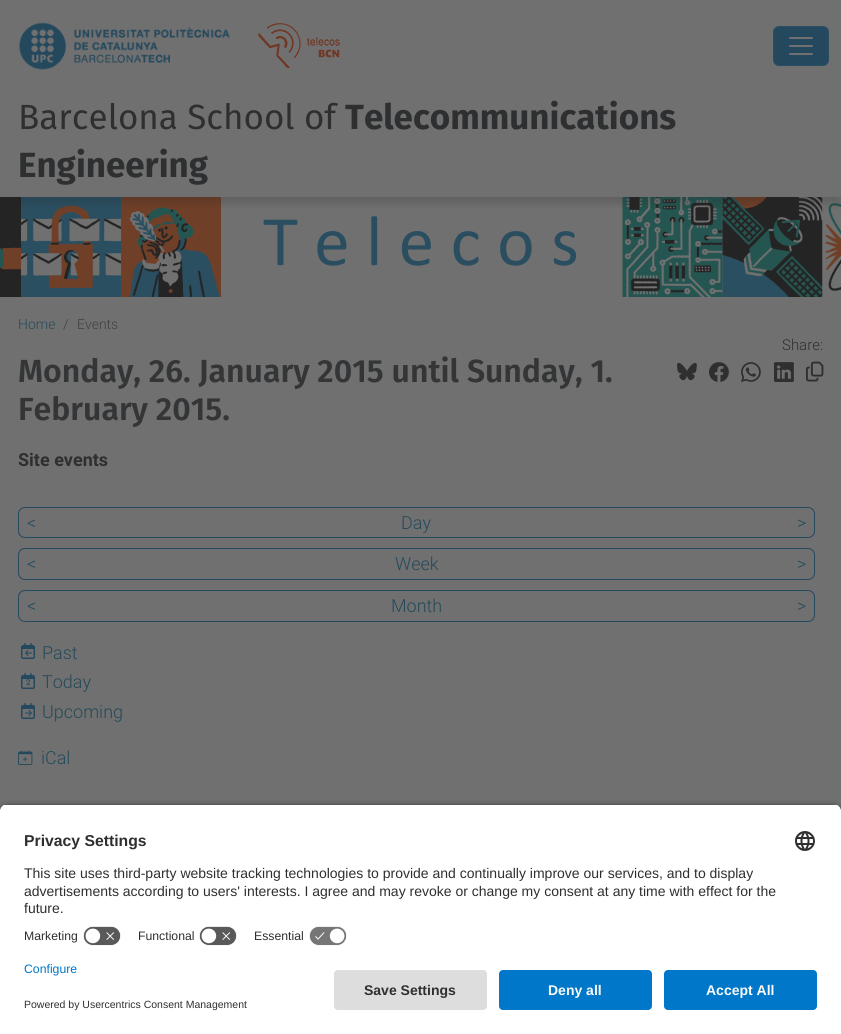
#include <cairo.h>
#include <math.h>
#include <stddef.h>

typedef struct { double x, y; const char *s; } line_t;

static void ink(cairo_t *ctx, unsigned color) {
    cairo_set_source_rgb(ctx, (color >> 16) / 255.0, (color >> 8 & 255) / 255.0, (color & 255) / 255.0);
}

static void round_path(cairo_t *ctx, double x, double y, double w, double h, double r) {
    cairo_new_sub_path(ctx);
    cairo_arc(ctx, x + w - r, y + h - r, r, 0, M_PI / 2);
    cairo_arc(ctx, x + r, y + h - r, r, M_PI / 2, M_PI);
    cairo_arc(ctx, x + r, y + r, r, M_PI, 1.5 * M_PI);
    cairo_arc(ctx, x + w - r, y + r, r, 1.5 * M_PI, 2 * M_PI);
    cairo_close_path(ctx);
}

static void blur_box(cairo_t *ctx, double x, double y, double w, double h, double r, double blur, double alpha) {
    cairo_push_group_with_content(ctx, CAIRO_CONTENT_ALPHA);
    cairo_set_operator(ctx, CAIRO_OPERATOR_SOURCE);
    for (int i = 15; i >= -15 && fmin(w, h) + blur * i / 3 > 0; i -= 2) {
        double e = blur * i / 6;
        cairo_set_source_rgba(ctx, 0, 0, 0, alpha * erfc((i - 1) / 8.5) / 2);
        round_path(ctx, x - e, y - e, w + 2 * e, h + 2 * e, fmax(0, fmin(r + e + blur * .6, fmin(w, h) / 2 + e)));
        cairo_fill(ctx);
    }
    cairo_pattern_t *soft = cairo_pop_group(ctx);
    cairo_mask(ctx, soft);
    cairo_pattern_destroy(soft);
}

static void paste(cairo_t *ctx, const char *path, double x, double y, double w, double h) {
    cairo_surface_t *image = cairo_image_surface_create_from_png(path);
    cairo_save(ctx);
    cairo_set_source_surface(ctx, image, x, y);
    cairo_rectangle(ctx, x, y, w, h);
    cairo_fill(ctx);
    cairo_restore(ctx);
    cairo_surface_destroy(image);
}

int main(void) {
    cairo_surface_t *surface = cairo_image_surface_create(CAIRO_FORMAT_RGB24, 841, 1034);
    cairo_t *ctx = cairo_create(surface);
    cairo_font_options_t *options = cairo_font_options_create();
    cairo_font_options_set_hint_metrics(options, CAIRO_HINT_METRICS_OFF);
    cairo_font_options_set_hint_style(options, CAIRO_HINT_STYLE_NONE);
    cairo_set_font_options(ctx, options);
    cairo_set_miter_limit(ctx, 4);
    ink(ctx, 0x707070);
    cairo_paint(ctx);
    paste(ctx, "media/1.png", 19, 22, 211, 48);
    paste(ctx, "media/2.png", 258, 23, 82, 45);
    ink(ctx, 0x24495E);
    round_path(ctx, 773, 26, 56, 40, 6);
    cairo_fill(ctx);
    round_path(ctx, 773.5, 26.5, 55, 39, 5.5);
    cairo_set_source_rgba(ctx, 0.439, 0.439, 0.439, 0.1);
    cairo_set_line_width(ctx, 1);
    cairo_stroke(ctx);
    paste(ctx, "media/3.png", 789, 37, 24, 18);
    paste(ctx, "media/4.png", 0, 197, 841, 100);
    cairo_save(ctx);
    cairo_rectangle(ctx, 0, 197, 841, 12);
    cairo_clip(ctx);
    ink(ctx, 0x242424);
    blur_box(ctx, 0, 99, 841, 105, 0, 4, 0.2);
    cairo_restore(ctx);
    cairo_select_font_face(ctx, "Fira Sans", CAIRO_FONT_SLANT_NORMAL, CAIRO_FONT_WEIGHT_NORMAL);
    cairo_set_font_size(ctx, 35);
    ink(ctx, 0x2E2F30);
    cairo_move_to(ctx, 18, 129);
    cairo_show_text(ctx, "Barcelona School of");
    cairo_select_font_face(ctx, "Fira Sans", CAIRO_FONT_SLANT_NORMAL, CAIRO_FONT_WEIGHT_BOLD);
    cairo_move_to(ctx, 345, 129);
    cairo_show_text(ctx, "Telecommunications");
    cairo_move_to(ctx, 18, 177);
    cairo_show_text(ctx, "Engineering");
    cairo_select_font_face(ctx, "Roboto Light", CAIRO_FONT_SLANT_NORMAL, CAIRO_FONT_WEIGHT_NORMAL);
    cairo_set_font_size(ctx, 14);
    ink(ctx, 0x244959);
    cairo_move_to(ctx, 18, 329);
    cairo_show_text(ctx, "Home");
    ink(ctx, 0x3E3F40);
    cairo_move_to(ctx, 63, 329);
    cairo_show_text(ctx, "/");
    cairo_move_to(ctx, 77, 329);
    cairo_show_text(ctx, "Events");
    cairo_set_font_size(ctx, 15);
    ink(ctx, 0x2E2F30);
    cairo_move_to(ctx, 782, 350);
    cairo_show_text(ctx, "Share:");
    paste(ctx, "media/5.png", 677, 362, 20, 19);
    paste(ctx, "media/6.png", 709, 362, 20, 20);
    paste(ctx, "media/7.png", 741, 362, 20, 20);
    paste(ctx, "media/8.png", 774, 362, 20, 20);
    paste(ctx, "media/9.png", 806, 361, 18, 21);
    cairo_select_font_face(ctx, "Fira Sans SemiBold", CAIRO_FONT_SLANT_NORMAL, CAIRO_FONT_WEIGHT_NORMAL);
    cairo_set_font_size(ctx, 32);
    ink(ctx, 0x333537);
    cairo_move_to(ctx, 18, 382);
    cairo_show_text(ctx, "Monday, 26. January 2015 until Sunday, 1.");
    cairo_move_to(ctx, 18, 420);
    cairo_show_text(ctx, "February 2015.");
    cairo_select_font_face(ctx, "Roboto", CAIRO_FONT_SLANT_NORMAL, CAIRO_FONT_WEIGHT_BOLD);
    cairo_set_font_size(ctx, 18);
    ink(ctx, 0x2E2F30);
    cairo_move_to(ctx, 18, 466);
    cairo_show_text(ctx, "Site events");
    round_path(ctx, 18.5, 507.5, 796, 30, 6.5);
    ink(ctx, 0x24495E);
    cairo_stroke(ctx);
    cairo_select_font_face(ctx, "Roboto Light", CAIRO_FONT_SLANT_NORMAL, CAIRO_FONT_WEIGHT_NORMAL);
    ink(ctx, 0x244959);
    {
        static const line_t items[] = {
            {27, 529, "<"},
            {401, 529, "Day"},
            {797, 529, ">"},
        };
        for (size_t i = 0; i < sizeof items / sizeof *items; i++) {
            cairo_move_to(ctx, items[i].x, items[i].y);
            cairo_show_text(ctx, items[i].s);
        }
    }
    round_path(ctx, 18.5, 548.5, 796, 31, 6.5);
    ink(ctx, 0x24495E);
    cairo_stroke(ctx);
    ink(ctx, 0x244959);
    {
        static const line_t items[] = {
            {27, 570, "<"},
            {395, 570, "Week"},
            {797, 570, ">"},
        };
        for (size_t i = 0; i < sizeof items / sizeof *items; i++) {
            cairo_move_to(ctx, items[i].x, items[i].y);
            cairo_show_text(ctx, items[i].s);
        }
    }
    round_path(ctx, 18.5, 590.5, 796, 31, 6.5);
    ink(ctx, 0x24495E);
    cairo_stroke(ctx);
    ink(ctx, 0x244959);
    {
        static const line_t items[] = {
            {27, 612, "<"},
            {391, 612, "Month"},
            {797, 612, ">"},
        };
        for (size_t i = 0; i < sizeof items / sizeof *items; i++) {
            cairo_move_to(ctx, items[i].x, items[i].y);
            cairo_show_text(ctx, items[i].s);
        }
    }
    paste(ctx, "media/10.png", 21, 643, 14, 16);
    paste(ctx, "media/11.png", 25, 650, 7, 6);
    cairo_move_to(ctx, 42, 659);
    cairo_show_text(ctx, "Past");
    cairo_select_font_face(ctx, "Roboto Medium", CAIRO_FONT_SLANT_NORMAL, CAIRO_FONT_WEIGHT_NORMAL);
    cairo_set_font_size(ctx, 8);
    cairo_move_to(ctx, 26, 685);
    cairo_show_text(ctx, "2");
    paste(ctx, "media/12.png", 21, 673, 14, 16);
    cairo_select_font_face(ctx, "Roboto Light", CAIRO_FONT_SLANT_NORMAL, CAIRO_FONT_WEIGHT_NORMAL);
    cairo_set_font_size(ctx, 18);
    cairo_move_to(ctx, 42, 688);
    cairo_show_text(ctx, "Today");
    paste(ctx, "media/10.png", 21, 703, 14, 16);
    paste(ctx, "media/13.png", 25, 710, 7, 6);
    cairo_move_to(ctx, 42, 718);
    cairo_show_text(ctx, "Upcoming");
    paste(ctx, "media/14.png", 18, 750, 15, 15);
    cairo_move_to(ctx, 41, 764);
    cairo_show_text(ctx, "iCal");
    ink(ctx, 0x000000);
    blur_box(ctx, 0, 807, 841, 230, 8, 3.5, 0.8);
    cairo_save(ctx);
    cairo_new_path(ctx);
    cairo_move_to(ctx, 8, 804);
    cairo_line_to(ctx, 833, 804);
    cairo_curve_to(ctx, 837.5, 804, 841, 807.5, 841, 812);
    cairo_line_to(ctx, 841, 962);
    cairo_line_to(ctx, 0, 962);
    cairo_line_to(ctx, 0, 812);
    cairo_curve_to(ctx, 0, 807.5, 3.5, 804, 8, 804);
    cairo_close_path(ctx);
    cairo_clip(ctx);
    ink(ctx, 0xFFFFFF);
    cairo_rectangle(ctx, 0, 805, 841, 157);
    cairo_fill(ctx);
    cairo_rectangle(ctx, 0, 805, 841, 117);
    cairo_fill(ctx);
    cairo_restore(ctx);
    cairo_select_font_face(ctx, "Liberation Sans", CAIRO_FONT_SLANT_NORMAL, CAIRO_FONT_WEIGHT_BOLD);
    cairo_set_font_size(ctx, 15.75);
    ink(ctx, 0x2E2F30);
    cairo_move_to(ctx, 24, 846);
    cairo_show_text(ctx, "Privacy Settings");
    paste(ctx, "media/15.png", 795, 831, 20, 20);
    cairo_select_font_face(ctx, "Liberation Sans", CAIRO_FONT_SLANT_NORMAL, CAIRO_FONT_WEIGHT_NORMAL);
    cairo_set_font_size(ctx, 14);
    {
        static const line_t items[] = {
            {24, 878, "This site uses third-party website tracking technologies to provide and continually improve our services, and to display"},
            {24, 896, "advertisements according to users' interests. I agree and may revoke or change my consent at any time with effect for the"},
            {24, 913, "future."},
        };
        for (size_t i = 0; i < sizeof items / sizeof *items; i++) {
            cairo_move_to(ctx, items[i].x, items[i].y);
            cairo_show_text(ctx, items[i].s);
        }
    }
    cairo_set_font_size(ctx, 12.25);
    cairo_move_to(ctx, 24, 940);
    cairo_show_text(ctx, "Marketing");
    paste(ctx, "media/16.png", 83, 926, 38, 20);
    cairo_move_to(ctx, 138, 940);
    cairo_show_text(ctx, "Functional");
    paste(ctx, "media/16.png", 199, 926, 38, 20);
    cairo_move_to(ctx, 254, 940);
    cairo_show_text(ctx, "Essential");
    paste(ctx, "media/17.png", 309, 926, 38, 20);
    ink(ctx, 0xFFFFFF);
    cairo_rectangle(ctx, 0, 962, 841, 72);
    cairo_fill(ctx);
    ink(ctx, 0x0077C8);
    cairo_move_to(ctx, 24, 973);
    cairo_show_text(ctx, "Configure");
    cairo_set_font_size(ctx, 10.5);
    ink(ctx, 0x2E2F30);
    cairo_move_to(ctx, 24, 1008);
    cairo_show_text(ctx, "Powered by Usercentrics Consent Management");
    ink(ctx, 0xDDDDDD);
    round_path(ctx, 334, 970, 153, 40, 4);
    cairo_fill(ctx);
    cairo_select_font_face(ctx, "Liberation Sans", CAIRO_FONT_SLANT_NORMAL, CAIRO_FONT_WEIGHT_BOLD);
    cairo_set_font_size(ctx, 14);
    ink(ctx, 0x2E2F30);
    cairo_move_to(ctx, 364, 995);
    cairo_show_text(ctx, "Save Settings");
    ink(ctx, 0x0077C8);
    round_path(ctx, 499, 970, 153, 40, 4);
    cairo_fill(ctx);
    ink(ctx, 0xFAFAFA);
    cairo_move_to(ctx, 548, 995);
    cairo_show_text(ctx, "Deny all");
    ink(ctx, 0x0077C8);
    round_path(ctx, 664, 970, 153, 40, 4);
    cairo_fill(ctx);
    ink(ctx, 0xFAFAFA);
    cairo_move_to(ctx, 706, 995);
    cairo_show_text(ctx, "Accept All");
    cairo_surface_write_to_png(surface, "image.png");
    cairo_font_options_destroy(options);
    cairo_destroy(ctx);
    cairo_surface_destroy(surface);
    return 0;
}
